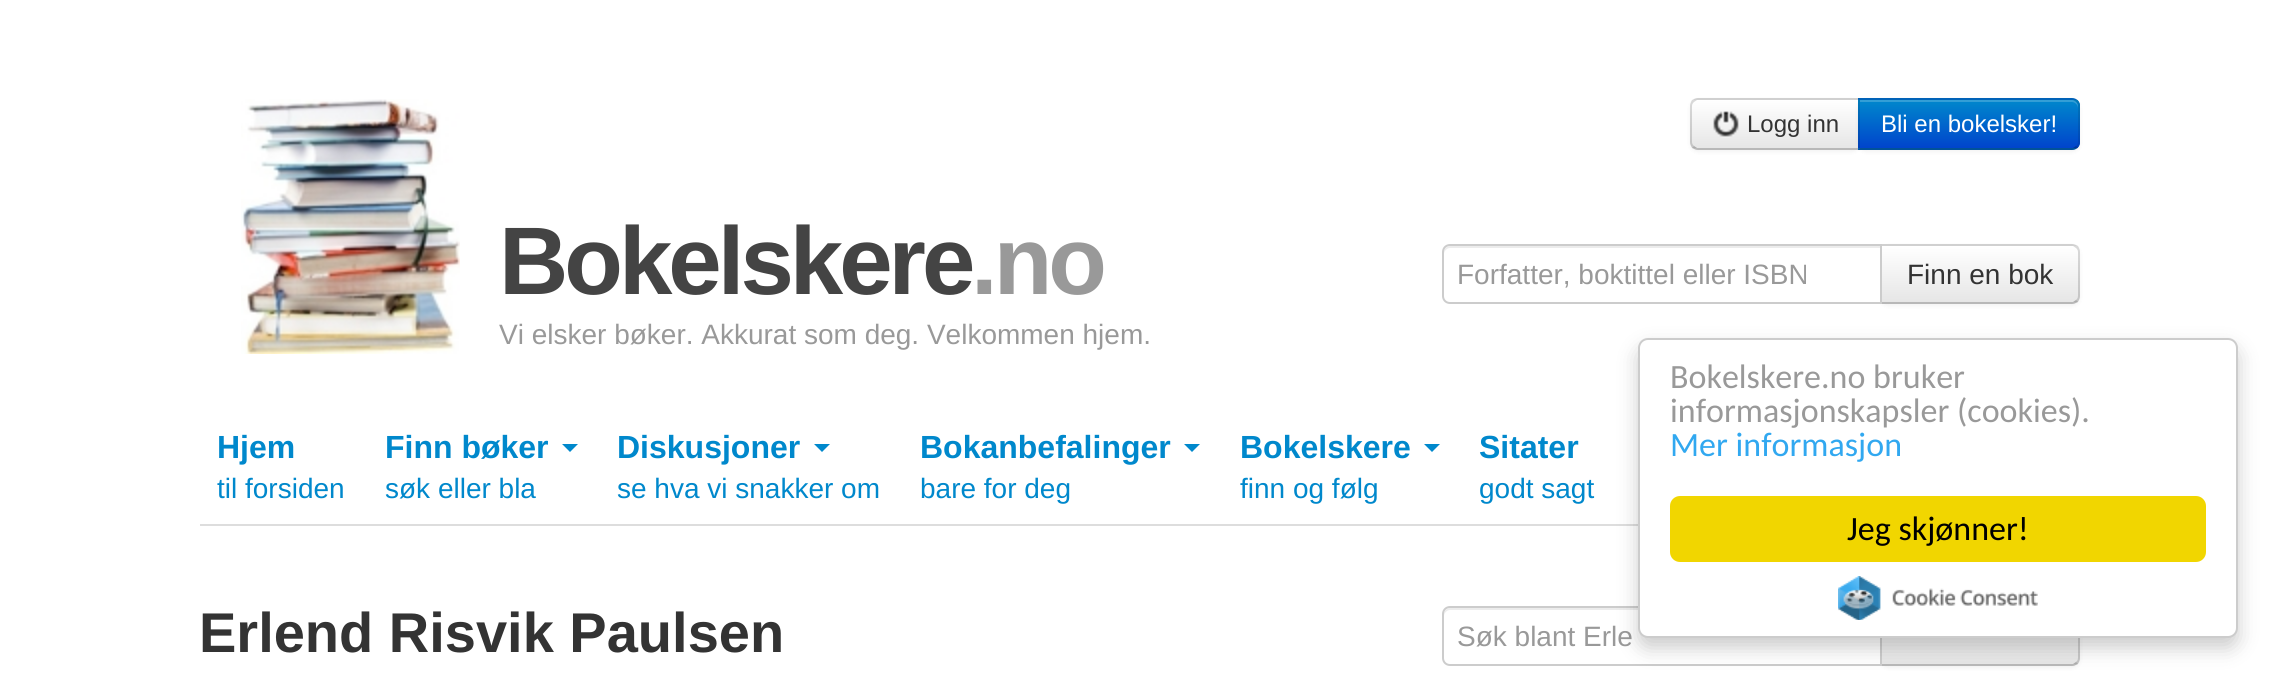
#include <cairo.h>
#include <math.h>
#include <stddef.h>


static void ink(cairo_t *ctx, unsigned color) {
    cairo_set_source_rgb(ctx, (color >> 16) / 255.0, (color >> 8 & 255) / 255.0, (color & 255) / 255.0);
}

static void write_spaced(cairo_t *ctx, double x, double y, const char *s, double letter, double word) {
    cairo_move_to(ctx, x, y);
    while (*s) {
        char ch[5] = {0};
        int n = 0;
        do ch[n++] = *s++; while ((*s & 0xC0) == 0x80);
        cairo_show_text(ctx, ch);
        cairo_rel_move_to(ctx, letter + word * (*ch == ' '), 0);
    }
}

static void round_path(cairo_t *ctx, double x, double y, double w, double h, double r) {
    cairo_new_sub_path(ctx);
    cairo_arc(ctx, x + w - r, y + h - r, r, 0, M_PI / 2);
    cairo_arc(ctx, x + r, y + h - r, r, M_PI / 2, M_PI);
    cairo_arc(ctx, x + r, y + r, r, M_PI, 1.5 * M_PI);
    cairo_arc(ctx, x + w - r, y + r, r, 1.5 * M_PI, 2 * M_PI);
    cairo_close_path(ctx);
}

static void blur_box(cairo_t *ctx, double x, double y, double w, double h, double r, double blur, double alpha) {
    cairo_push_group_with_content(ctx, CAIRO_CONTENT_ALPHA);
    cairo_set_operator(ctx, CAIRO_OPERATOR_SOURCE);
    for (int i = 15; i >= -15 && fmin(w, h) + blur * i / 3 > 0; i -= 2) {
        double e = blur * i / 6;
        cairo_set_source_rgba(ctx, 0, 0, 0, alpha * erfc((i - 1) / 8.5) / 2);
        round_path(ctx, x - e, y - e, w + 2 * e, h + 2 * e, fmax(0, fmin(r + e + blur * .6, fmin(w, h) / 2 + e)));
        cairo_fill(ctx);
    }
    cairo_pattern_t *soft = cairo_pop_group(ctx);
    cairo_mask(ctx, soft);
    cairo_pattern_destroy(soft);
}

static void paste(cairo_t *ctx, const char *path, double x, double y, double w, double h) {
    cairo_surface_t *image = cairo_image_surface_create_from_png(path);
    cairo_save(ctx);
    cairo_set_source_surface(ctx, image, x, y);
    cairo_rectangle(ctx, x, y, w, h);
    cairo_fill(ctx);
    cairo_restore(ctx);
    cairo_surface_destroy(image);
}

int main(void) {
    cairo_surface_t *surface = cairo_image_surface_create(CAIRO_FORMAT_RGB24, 2277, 678);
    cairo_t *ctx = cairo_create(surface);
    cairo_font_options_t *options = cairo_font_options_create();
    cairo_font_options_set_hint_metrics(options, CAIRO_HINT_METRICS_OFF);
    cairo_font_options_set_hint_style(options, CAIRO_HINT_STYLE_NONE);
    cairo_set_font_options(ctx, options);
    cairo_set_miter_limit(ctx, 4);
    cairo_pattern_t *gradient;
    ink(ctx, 0xFFFFFF);
    cairo_paint(ctx);
    ink(ctx, 0x000000);
    blur_box(ctx, 1690, 100, 170, 52, 8, 2, 0.05);
    ink(ctx, 0xF5F5F5);
    cairo_new_path(ctx);
    cairo_move_to(ctx, 1698, 98);
    cairo_line_to(ctx, 1860, 98);
    cairo_line_to(ctx, 1860, 150);
    cairo_line_to(ctx, 1698, 150);
    cairo_curve_to(ctx, 1693.5, 150, 1690, 146.5, 1690, 142);
    cairo_line_to(ctx, 1690, 106);
    cairo_curve_to(ctx, 1690, 101.5, 1693.5, 98, 1698, 98);
    cairo_close_path(ctx);
    cairo_fill(ctx);
    cairo_save(ctx);
    cairo_new_path(ctx);
    cairo_move_to(ctx, 1698, 98);
    cairo_line_to(ctx, 1860, 98);
    cairo_line_to(ctx, 1860, 150);
    cairo_line_to(ctx, 1698, 150);
    cairo_curve_to(ctx, 1693.5, 150, 1690, 146.5, 1690, 142);
    cairo_line_to(ctx, 1690, 106);
    cairo_curve_to(ctx, 1690, 101.5, 1693.5, 98, 1698, 98);
    cairo_close_path(ctx);
    cairo_clip(ctx);
    gradient = cairo_pattern_create_linear(1775, 100, 1775, 148);
    cairo_pattern_add_color_stop_rgba(gradient, 0, 1, 1, 1, 1);
    cairo_pattern_add_color_stop_rgba(gradient, 1, 0.902, 0.902, 0.902, 1);
    cairo_set_source(ctx, gradient);
    cairo_pattern_destroy(gradient);
    cairo_rectangle(ctx, 1690, 100, 168, 48);
    cairo_fill(ctx);
    cairo_restore(ctx);
    cairo_set_source_rgba(ctx, 0, 0, 0, 0.15);
    cairo_new_path(ctx);
    cairo_move_to(ctx, 1698, 98);
    cairo_curve_to(ctx, 1696, 98, 1694, 99, 1692, 100);
    cairo_line_to(ctx, 1694, 102);
    cairo_line_to(ctx, 1697, 100);
    cairo_line_to(ctx, 1858, 100);
    cairo_line_to(ctx, 1860, 98);
    cairo_close_path(ctx);
    cairo_fill(ctx);
    cairo_set_source_rgba(ctx, 0, 0, 0, 0.25);
    cairo_new_path(ctx);
    cairo_move_to(ctx, 1860, 150);
    cairo_line_to(ctx, 1858, 148);
    cairo_line_to(ctx, 1697, 148);
    cairo_line_to(ctx, 1694, 146);
    cairo_line_to(ctx, 1692, 148);
    cairo_curve_to(ctx, 1694, 149, 1696, 150, 1698, 150);
    cairo_close_path(ctx);
    cairo_fill(ctx);
    cairo_set_source_rgba(ctx, 0, 0, 0, 0.15);
    cairo_new_path(ctx);
    cairo_move_to(ctx, 1690, 106);
    cairo_line_to(ctx, 1690, 142);
    cairo_curve_to(ctx, 1690, 144, 1691, 146, 1692, 148);
    cairo_line_to(ctx, 1694, 146);
    cairo_curve_to(ctx, 1693, 145, 1692, 144, 1692, 142);
    cairo_line_to(ctx, 1692, 106);
    cairo_curve_to(ctx, 1692, 104, 1693, 103, 1694, 102);
    cairo_line_to(ctx, 1692, 100);
    cairo_curve_to(ctx, 1691, 102, 1690, 104, 1690, 106);
    cairo_close_path(ctx);
    cairo_fill(ctx);
    paste(ctx, "media/1.png", 1713, 111, 26, 27);
    cairo_select_font_face(ctx, "Liberation Sans", CAIRO_FONT_SLANT_NORMAL, CAIRO_FONT_WEIGHT_NORMAL);
    cairo_set_font_size(ctx, 24);
    ink(ctx, 0x333333);
    cairo_move_to(ctx, 1747, 132);
    cairo_show_text(ctx, "Logg inn");
    ink(ctx, 0x000000);
    blur_box(ctx, 1858, 100, 222, 52, 8, 2, 0.05);
    ink(ctx, 0x006DCC);
    cairo_new_path(ctx);
    cairo_move_to(ctx, 1858, 98);
    cairo_line_to(ctx, 2072, 98);
    cairo_curve_to(ctx, 2076.5, 98, 2080, 101.5, 2080, 106);
    cairo_line_to(ctx, 2080, 142);
    cairo_curve_to(ctx, 2080, 146.5, 2076.5, 150, 2072, 150);
    cairo_line_to(ctx, 1858, 150);
    cairo_close_path(ctx);
    cairo_fill(ctx);
    cairo_save(ctx);
    cairo_new_path(ctx);
    cairo_move_to(ctx, 1858, 98);
    cairo_line_to(ctx, 2072, 98);
    cairo_curve_to(ctx, 2076.5, 98, 2080, 101.5, 2080, 106);
    cairo_line_to(ctx, 2080, 142);
    cairo_curve_to(ctx, 2080, 146.5, 2076.5, 150, 2072, 150);
    cairo_line_to(ctx, 1858, 150);
    cairo_close_path(ctx);
    cairo_clip(ctx);
    gradient = cairo_pattern_create_linear(1969, 100, 1969, 148);
    cairo_pattern_add_color_stop_rgba(gradient, 0, 0, 0.533, 0.8, 1);
    cairo_pattern_add_color_stop_rgba(gradient, 1, 0, 0.267, 0.8, 1);
    cairo_set_source(ctx, gradient);
    cairo_pattern_destroy(gradient);
    cairo_rectangle(ctx, 1858, 100, 222, 48);
    cairo_fill(ctx);
    cairo_restore(ctx);
    cairo_set_source_rgba(ctx, 1, 1, 1, 0.2);
    cairo_new_path(ctx);
    cairo_move_to(ctx, 1860, 102);
    cairo_line_to(ctx, 2072, 102);
    cairo_curve_to(ctx, 2075, 102, 2078, 105, 2078, 108);
    cairo_line_to(ctx, 2078, 106);
    cairo_curve_to(ctx, 2078, 103, 2075, 100, 2072, 100);
    cairo_line_to(ctx, 1860, 100);
    cairo_close_path(ctx);
    cairo_fill(ctx);
    cairo_set_source_rgba(ctx, 0, 0, 0, 0.1);
    cairo_new_path(ctx);
    cairo_move_to(ctx, 1858, 98);
    cairo_line_to(ctx, 1860, 100);
    cairo_line_to(ctx, 2073, 100);
    cairo_line_to(ctx, 2076, 102);
    cairo_line_to(ctx, 2078, 100);
    cairo_curve_to(ctx, 2076, 99, 2074, 98, 2072, 98);
    cairo_close_path(ctx);
    cairo_fill(ctx);
    cairo_new_path(ctx);
    cairo_move_to(ctx, 2080, 142);
    cairo_line_to(ctx, 2080, 106);
    cairo_curve_to(ctx, 2080, 104, 2079, 102, 2078, 100);
    cairo_line_to(ctx, 2076, 102);
    cairo_curve_to(ctx, 2077, 103, 2078, 104, 2078, 106);
    cairo_line_to(ctx, 2078, 142);
    cairo_curve_to(ctx, 2078, 144, 2077, 145, 2076, 146);
    cairo_line_to(ctx, 2078, 148);
    cairo_curve_to(ctx, 2079, 146, 2080, 144, 2080, 142);
    cairo_close_path(ctx);
    cairo_fill(ctx);
    cairo_set_source_rgba(ctx, 0, 0, 0, 0.25);
    cairo_new_path(ctx);
    cairo_move_to(ctx, 2072, 150);
    cairo_curve_to(ctx, 2074, 150, 2076, 149, 2078, 148);
    cairo_line_to(ctx, 2076, 146);
    cairo_line_to(ctx, 2073, 148);
    cairo_line_to(ctx, 1860, 148);
    cairo_line_to(ctx, 1858, 150);
    cairo_close_path(ctx);
    cairo_fill(ctx);
    cairo_set_source_rgba(ctx, 0, 0, 0, 0.1);
    cairo_new_path(ctx);
    cairo_move_to(ctx, 1858, 98);
    cairo_line_to(ctx, 1858, 150);
    cairo_line_to(ctx, 1860, 148);
    cairo_line_to(ctx, 1860, 100);
    cairo_close_path(ctx);
    cairo_fill(ctx);
    ink(ctx, 0xFFFFFF);
    cairo_move_to(ctx, 1881, 132);
    cairo_show_text(ctx, "Bli en bokelsker!");
    paste(ctx, "media/2.png", 241, 99, 219, 255);
    cairo_select_font_face(ctx, "Liberation Sans", CAIRO_FONT_SLANT_NORMAL, CAIRO_FONT_WEIGHT_BOLD);
    cairo_set_font_size(ctx, 96);
    ink(ctx, 0x444444);
    write_spaced(ctx, 499, 294, "Bokelskere", -4, 0);
    ink(ctx, 0x999999);
    write_spaced(ctx, 971, 294, ".no", -4, 0);
    cairo_select_font_face(ctx, "Liberation Sans", CAIRO_FONT_SLANT_NORMAL, CAIRO_FONT_WEIGHT_NORMAL);
    cairo_set_font_size(ctx, 28);
    cairo_move_to(ctx, 499, 344);
    cairo_show_text(ctx, "Vi elsker bøker. Akkurat som deg. Velkommen hjem.");
    ink(ctx, 0x000000);
    blur_box(ctx, 1880, 246, 200, 60, 8, 2, 0.05);
    ink(ctx, 0xF5F5F5);
    cairo_new_path(ctx);
    cairo_move_to(ctx, 1880, 244);
    cairo_line_to(ctx, 2072, 244);
    cairo_curve_to(ctx, 2076.5, 244, 2080, 247.5, 2080, 252);
    cairo_line_to(ctx, 2080, 296);
    cairo_curve_to(ctx, 2080, 300.5, 2076.5, 304, 2072, 304);
    cairo_line_to(ctx, 1880, 304);
    cairo_close_path(ctx);
    cairo_fill(ctx);
    cairo_save(ctx);
    cairo_new_path(ctx);
    cairo_move_to(ctx, 1880, 244);
    cairo_line_to(ctx, 2072, 244);
    cairo_curve_to(ctx, 2076.5, 244, 2080, 247.5, 2080, 252);
    cairo_line_to(ctx, 2080, 296);
    cairo_curve_to(ctx, 2080, 300.5, 2076.5, 304, 2072, 304);
    cairo_line_to(ctx, 1880, 304);
    cairo_close_path(ctx);
    cairo_clip(ctx);
    gradient = cairo_pattern_create_linear(1980, 246, 1980, 302);
    cairo_pattern_add_color_stop_rgba(gradient, 0, 1, 1, 1, 1);
    cairo_pattern_add_color_stop_rgba(gradient, 1, 0.902, 0.902, 0.902, 1);
    cairo_set_source(ctx, gradient);
    cairo_pattern_destroy(gradient);
    cairo_rectangle(ctx, 1882, 246, 198, 56);
    cairo_fill(ctx);
    cairo_restore(ctx);
    cairo_set_source_rgba(ctx, 0, 0, 0, 0.15);
    cairo_new_path(ctx);
    cairo_move_to(ctx, 1880, 244);
    cairo_line_to(ctx, 1882, 246);
    cairo_line_to(ctx, 2073, 246);
    cairo_line_to(ctx, 2076, 248);
    cairo_line_to(ctx, 2078, 246);
    cairo_curve_to(ctx, 2076, 245, 2074, 244, 2072, 244);
    cairo_close_path(ctx);
    cairo_fill(ctx);
    cairo_new_path(ctx);
    cairo_move_to(ctx, 2080, 296);
    cairo_line_to(ctx, 2080, 252);
    cairo_curve_to(ctx, 2080, 250, 2079, 248, 2078, 246);
    cairo_line_to(ctx, 2076, 248);
    cairo_curve_to(ctx, 2077, 249, 2078, 250, 2078, 252);
    cairo_line_to(ctx, 2078, 296);
    cairo_curve_to(ctx, 2078, 298, 2077, 299, 2076, 300);
    cairo_line_to(ctx, 2078, 302);
    cairo_curve_to(ctx, 2079, 300, 2080, 298, 2080, 296);
    cairo_close_path(ctx);
    cairo_fill(ctx);
    cairo_set_source_rgba(ctx, 0, 0, 0, 0.25);
    cairo_new_path(ctx);
    cairo_move_to(ctx, 2072, 304);
    cairo_curve_to(ctx, 2074, 304, 2076, 303, 2078, 302);
    cairo_line_to(ctx, 2076, 300);
    cairo_line_to(ctx, 2073, 302);
    cairo_line_to(ctx, 1882, 302);
    cairo_line_to(ctx, 1880, 304);
    cairo_close_path(ctx);
    cairo_fill(ctx);
    ink(ctx, 0xFFFFFF);
    cairo_new_path(ctx);
    cairo_move_to(ctx, 1450, 244);
    cairo_line_to(ctx, 1882, 244);
    cairo_line_to(ctx, 1882, 304);
    cairo_line_to(ctx, 1450, 304);
    cairo_curve_to(ctx, 1445.5, 304, 1442, 300.5, 1442, 296);
    cairo_line_to(ctx, 1442, 252);
    cairo_curve_to(ctx, 1442, 247.5, 1445.5, 244, 1450, 244);
    cairo_close_path(ctx);
    cairo_fill(ctx);
    ink(ctx, 0xECECEC);
    cairo_new_path(ctx);
    cairo_move_to(ctx, 1450, 248);
    cairo_line_to(ctx, 1880, 248);
    cairo_line_to(ctx, 1880, 246);
    cairo_line_to(ctx, 1450, 246);
    cairo_curve_to(ctx, 1447, 246, 1444, 249, 1444, 252);
    cairo_line_to(ctx, 1444, 254);
    cairo_curve_to(ctx, 1444, 251, 1447, 248, 1450, 248);
    cairo_close_path(ctx);
    cairo_fill(ctx);
    cairo_new_path(ctx);
    cairo_move_to(ctx, 1450, 245);
    cairo_line_to(ctx, 1881, 245);
    cairo_line_to(ctx, 1881, 303);
    cairo_line_to(ctx, 1450, 303);
    cairo_curve_to(ctx, 1446, 303, 1443, 300, 1443, 296);
    cairo_line_to(ctx, 1443, 252);
    cairo_curve_to(ctx, 1443, 248, 1446, 245, 1450, 245);
    cairo_close_path(ctx);
    ink(ctx, 0xCCCCCC);
    cairo_stroke(ctx);
    ink(ctx, 0x999999);
    cairo_move_to(ctx, 1457, 284);
    cairo_show_text(ctx, "Forfatter, boktittel eller ISBN");
    ink(ctx, 0x333333);
    cairo_move_to(ctx, 1907, 284);
    cairo_show_text(ctx, "Finn en bok");
    ink(ctx, 0xDDDDDD);
    cairo_rectangle(ctx, 200, 524, 1438, 2);
    cairo_fill(ctx);
    cairo_select_font_face(ctx, "Liberation Sans", CAIRO_FONT_SLANT_NORMAL, CAIRO_FONT_WEIGHT_BOLD);
    cairo_set_font_size(ctx, 32);
    ink(ctx, 0x0088CC);
    cairo_move_to(ctx, 217, 458);
    cairo_show_text(ctx, "Hjem");
    cairo_select_font_face(ctx, "Liberation Sans", CAIRO_FONT_SLANT_NORMAL, CAIRO_FONT_WEIGHT_NORMAL);
    cairo_set_font_size(ctx, 28);
    cairo_move_to(ctx, 217, 498);
    cairo_show_text(ctx, "til forsiden");
    cairo_select_font_face(ctx, "Liberation Sans", CAIRO_FONT_SLANT_NORMAL, CAIRO_FONT_WEIGHT_BOLD);
    cairo_set_font_size(ctx, 32);
    cairo_move_to(ctx, 385, 458);
    cairo_show_text(ctx, "Finn bøker");
    cairo_new_path(ctx);
    cairo_move_to(ctx, 562, 444);
    cairo_line_to(ctx, 578, 444);
    cairo_line_to(ctx, 570, 452);
    cairo_close_path(ctx);
    cairo_fill(ctx);
    cairo_select_font_face(ctx, "Liberation Sans", CAIRO_FONT_SLANT_NORMAL, CAIRO_FONT_WEIGHT_NORMAL);
    cairo_set_font_size(ctx, 28);
    cairo_move_to(ctx, 385, 498);
    cairo_show_text(ctx, "søk eller bla");
    cairo_select_font_face(ctx, "Liberation Sans", CAIRO_FONT_SLANT_NORMAL, CAIRO_FONT_WEIGHT_BOLD);
    cairo_set_font_size(ctx, 32);
    cairo_move_to(ctx, 617, 458);
    cairo_show_text(ctx, "Diskusjoner");
    cairo_new_path(ctx);
    cairo_move_to(ctx, 814, 444);
    cairo_line_to(ctx, 830, 444);
    cairo_line_to(ctx, 822, 452);
    cairo_close_path(ctx);
    cairo_fill(ctx);
    cairo_select_font_face(ctx, "Liberation Sans", CAIRO_FONT_SLANT_NORMAL, CAIRO_FONT_WEIGHT_NORMAL);
    cairo_set_font_size(ctx, 28);
    cairo_move_to(ctx, 617, 498);
    cairo_show_text(ctx, "se hva vi snakker om");
    cairo_select_font_face(ctx, "Liberation Sans", CAIRO_FONT_SLANT_NORMAL, CAIRO_FONT_WEIGHT_BOLD);
    cairo_set_font_size(ctx, 32);
    cairo_move_to(ctx, 920, 458);
    cairo_show_text(ctx, "Bokanbefalinger");
    cairo_new_path(ctx);
    cairo_move_to(ctx, 1184, 444);
    cairo_line_to(ctx, 1200, 444);
    cairo_line_to(ctx, 1192, 452);
    cairo_close_path(ctx);
    cairo_fill(ctx);
    cairo_select_font_face(ctx, "Liberation Sans", CAIRO_FONT_SLANT_NORMAL, CAIRO_FONT_WEIGHT_NORMAL);
    cairo_set_font_size(ctx, 28);
    cairo_move_to(ctx, 920, 498);
    cairo_show_text(ctx, "bare for deg");
    cairo_select_font_face(ctx, "Liberation Sans", CAIRO_FONT_SLANT_NORMAL, CAIRO_FONT_WEIGHT_BOLD);
    cairo_set_font_size(ctx, 32);
    cairo_move_to(ctx, 1240, 458);
    cairo_show_text(ctx, "Bokelskere");
    cairo_new_path(ctx);
    cairo_move_to(ctx, 1424, 444);
    cairo_line_to(ctx, 1440, 444);
    cairo_line_to(ctx, 1432, 452);
    cairo_close_path(ctx);
    cairo_fill(ctx);
    cairo_select_font_face(ctx, "Liberation Sans", CAIRO_FONT_SLANT_NORMAL, CAIRO_FONT_WEIGHT_NORMAL);
    cairo_set_font_size(ctx, 28);
    cairo_move_to(ctx, 1240, 498);
    cairo_show_text(ctx, "finn og følg");
    cairo_select_font_face(ctx, "Liberation Sans", CAIRO_FONT_SLANT_NORMAL, CAIRO_FONT_WEIGHT_BOLD);
    cairo_set_font_size(ctx, 32);
    cairo_move_to(ctx, 1479, 458);
    cairo_show_text(ctx, "Sitater");
    cairo_select_font_face(ctx, "Liberation Sans", CAIRO_FONT_SLANT_NORMAL, CAIRO_FONT_WEIGHT_NORMAL);
    cairo_set_font_size(ctx, 28);
    cairo_move_to(ctx, 1479, 498);
    cairo_show_text(ctx, "godt sagt");
    cairo_select_font_face(ctx, "Liberation Sans", CAIRO_FONT_SLANT_NORMAL, CAIRO_FONT_WEIGHT_BOLD);
    cairo_set_font_size(ctx, 56);
    ink(ctx, 0x333333);
    cairo_move_to(ctx, 199, 652);
    cairo_show_text(ctx, "Erlend Risvik Paulsen");
    ink(ctx, 0x000000);
    blur_box(ctx, 1880, 608, 200, 60, 8, 2, 0.05);
    ink(ctx, 0xF5F5F5);
    cairo_new_path(ctx);
    cairo_move_to(ctx, 1880, 606);
    cairo_line_to(ctx, 2072, 606);
    cairo_curve_to(ctx, 2076.5, 606, 2080, 609.5, 2080, 614);
    cairo_line_to(ctx, 2080, 658);
    cairo_curve_to(ctx, 2080, 662.5, 2076.5, 666, 2072, 666);
    cairo_line_to(ctx, 1880, 666);
    cairo_close_path(ctx);
    cairo_fill(ctx);
    cairo_save(ctx);
    cairo_new_path(ctx);
    cairo_move_to(ctx, 1880, 606);
    cairo_line_to(ctx, 2072, 606);
    cairo_curve_to(ctx, 2076.5, 606, 2080, 609.5, 2080, 614);
    cairo_line_to(ctx, 2080, 658);
    cairo_curve_to(ctx, 2080, 662.5, 2076.5, 666, 2072, 666);
    cairo_line_to(ctx, 1880, 666);
    cairo_close_path(ctx);
    cairo_clip(ctx);
    gradient = cairo_pattern_create_linear(1980, 608, 1980, 664);
    cairo_pattern_add_color_stop_rgba(gradient, 0, 1, 1, 1, 1);
    cairo_pattern_add_color_stop_rgba(gradient, 1, 0.902, 0.902, 0.902, 1);
    cairo_set_source(ctx, gradient);
    cairo_pattern_destroy(gradient);
    cairo_rectangle(ctx, 1882, 638, 198, 26);
    cairo_fill(ctx);
    cairo_restore(ctx);
    cairo_set_source_rgba(ctx, 0, 0, 0, 0.15);
    cairo_new_path(ctx);
    cairo_move_to(ctx, 2080, 658);
    cairo_line_to(ctx, 2080, 614);
    cairo_curve_to(ctx, 2080, 612, 2079, 610, 2078, 608);
    cairo_line_to(ctx, 2076, 610);
    cairo_curve_to(ctx, 2077, 611, 2078, 612, 2078, 614);
    cairo_line_to(ctx, 2078, 658);
    cairo_curve_to(ctx, 2078, 660, 2077, 661, 2076, 662);
    cairo_line_to(ctx, 2078, 664);
    cairo_curve_to(ctx, 2079, 662, 2080, 660, 2080, 658);
    cairo_close_path(ctx);
    cairo_fill(ctx);
    cairo_set_source_rgba(ctx, 0, 0, 0, 0.25);
    cairo_new_path(ctx);
    cairo_move_to(ctx, 2072, 666);
    cairo_curve_to(ctx, 2074, 666, 2076, 665, 2078, 664);
    cairo_line_to(ctx, 2076, 662);
    cairo_line_to(ctx, 2073, 664);
    cairo_line_to(ctx, 1882, 664);
    cairo_line_to(ctx, 1880, 666);
    cairo_close_path(ctx);
    cairo_fill(ctx);
    ink(ctx, 0xFFFFFF);
    cairo_new_path(ctx);
    cairo_move_to(ctx, 1450, 606);
    cairo_line_to(ctx, 1882, 606);
    cairo_line_to(ctx, 1882, 666);
    cairo_line_to(ctx, 1450, 666);
    cairo_curve_to(ctx, 1445.5, 666, 1442, 662.5, 1442, 658);
    cairo_line_to(ctx, 1442, 614);
    cairo_curve_to(ctx, 1442, 609.5, 1445.5, 606, 1450, 606);
    cairo_close_path(ctx);
    cairo_fill(ctx);
    ink(ctx, 0xECECEC);
    cairo_new_path(ctx);
    cairo_move_to(ctx, 1450, 610);
    cairo_line_to(ctx, 1880, 610);
    cairo_line_to(ctx, 1880, 608);
    cairo_line_to(ctx, 1450, 608);
    cairo_curve_to(ctx, 1447, 608, 1444, 611, 1444, 614);
    cairo_line_to(ctx, 1444, 616);
    cairo_curve_to(ctx, 1444, 613, 1447, 610, 1450, 610);
    cairo_close_path(ctx);
    cairo_fill(ctx);
    cairo_new_path(ctx);
    cairo_move_to(ctx, 1450, 607);
    cairo_line_to(ctx, 1881, 607);
    cairo_line_to(ctx, 1881, 665);
    cairo_line_to(ctx, 1450, 665);
    cairo_curve_to(ctx, 1446, 665, 1443, 662, 1443, 658);
    cairo_line_to(ctx, 1443, 614);
    cairo_curve_to(ctx, 1443, 610, 1446, 607, 1450, 607);
    cairo_close_path(ctx);
    ink(ctx, 0xCCCCCC);
    cairo_stroke(ctx);
    cairo_select_font_face(ctx, "Liberation Sans", CAIRO_FONT_SLANT_NORMAL, CAIRO_FONT_WEIGHT_NORMAL);
    cairo_set_font_size(ctx, 28);
    ink(ctx, 0x999999);
    cairo_move_to(ctx, 1457, 646);
    cairo_show_text(ctx, "Søk blant Erle");
    ink(ctx, 0x000000);
    blur_box(ctx, 1638, 348, 600, 300, 10, 10, 0.2);
    ink(ctx, 0xFFFFFF);
    round_path(ctx, 1639, 339, 598, 298, 9);
    cairo_fill_preserve(ctx);
    ink(ctx, 0xCCCCCC);
    cairo_stroke(ctx);
    cairo_select_font_face(ctx, "Carlito", CAIRO_FONT_SLANT_NORMAL, CAIRO_FONT_WEIGHT_NORMAL);
    cairo_set_font_size(ctx, 34);
    ink(ctx, 0x999999);
    cairo_move_to(ctx, 1670, 388);
    cairo_show_text(ctx, "Bokelskere.no bruker");
    cairo_move_to(ctx, 1670, 422);
    cairo_show_text(ctx, "informasjonskapsler (cookies).");
    ink(ctx, 0x31A8F0);
    cairo_move_to(ctx, 1670, 456);
    cairo_show_text(ctx, "Mer informasjon");
    ink(ctx, 0xF1D600);
    round_path(ctx, 1670, 496, 536, 66, 10);
    cairo_fill(ctx);
    ink(ctx, 0x000000);
    cairo_move_to(ctx, 1847, 540);
    cairo_show_text(ctx, "Jeg skjønner!");
    paste(ctx, "media/3.png", 1838, 576, 200, 44);
    cairo_surface_write_to_png(surface, "image.png");
    cairo_font_options_destroy(options);
    cairo_destroy(ctx);
    cairo_surface_destroy(surface);
    return 0;
}
